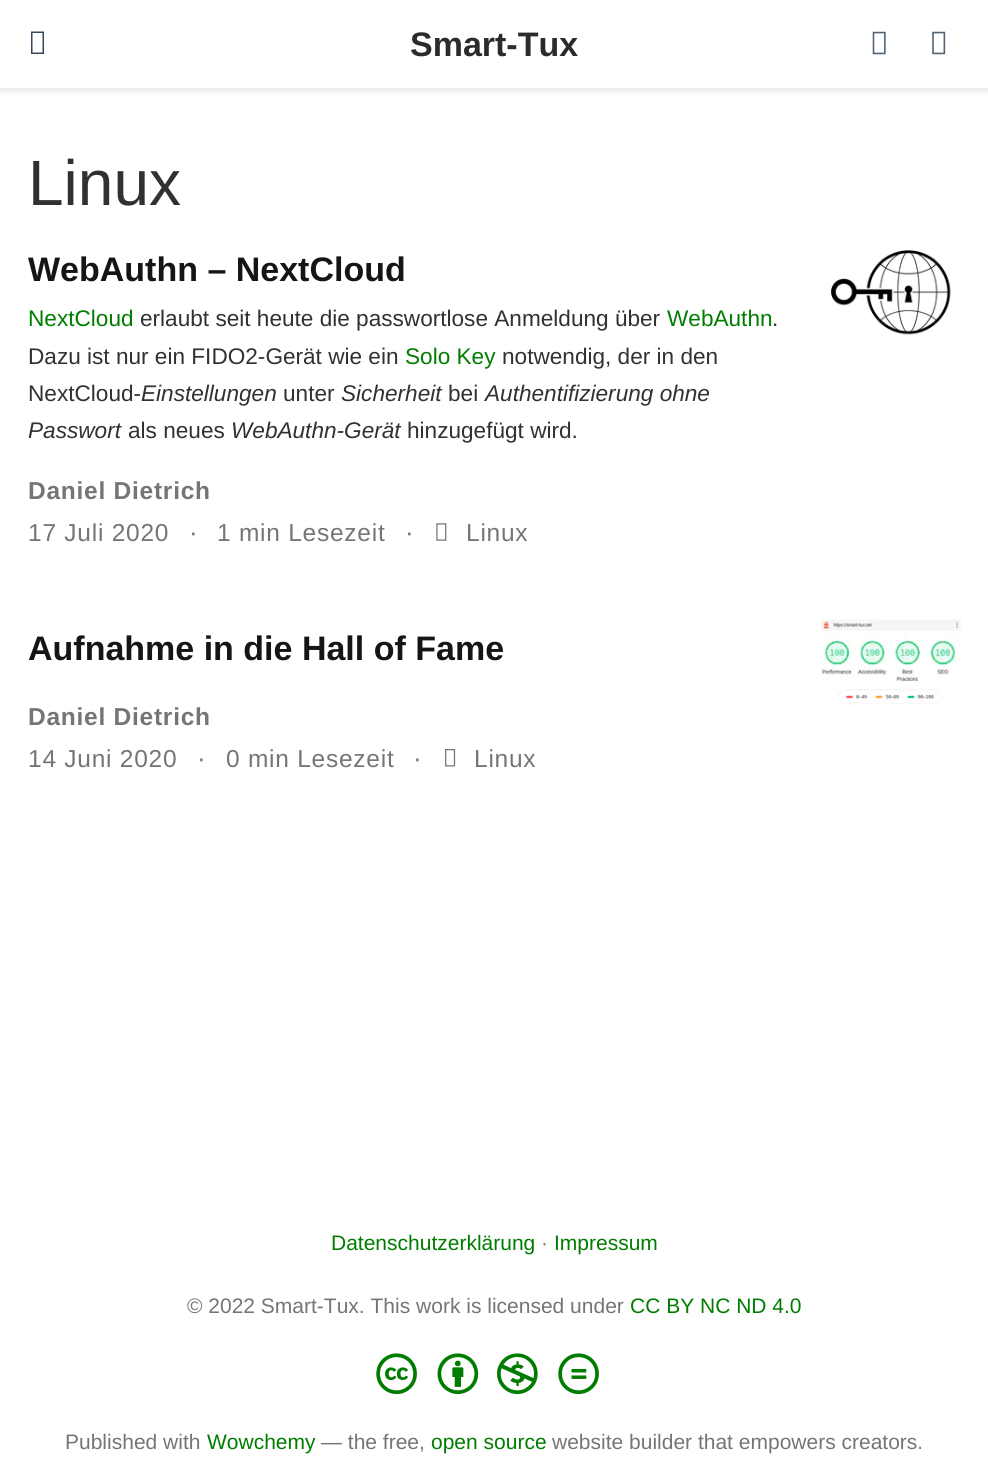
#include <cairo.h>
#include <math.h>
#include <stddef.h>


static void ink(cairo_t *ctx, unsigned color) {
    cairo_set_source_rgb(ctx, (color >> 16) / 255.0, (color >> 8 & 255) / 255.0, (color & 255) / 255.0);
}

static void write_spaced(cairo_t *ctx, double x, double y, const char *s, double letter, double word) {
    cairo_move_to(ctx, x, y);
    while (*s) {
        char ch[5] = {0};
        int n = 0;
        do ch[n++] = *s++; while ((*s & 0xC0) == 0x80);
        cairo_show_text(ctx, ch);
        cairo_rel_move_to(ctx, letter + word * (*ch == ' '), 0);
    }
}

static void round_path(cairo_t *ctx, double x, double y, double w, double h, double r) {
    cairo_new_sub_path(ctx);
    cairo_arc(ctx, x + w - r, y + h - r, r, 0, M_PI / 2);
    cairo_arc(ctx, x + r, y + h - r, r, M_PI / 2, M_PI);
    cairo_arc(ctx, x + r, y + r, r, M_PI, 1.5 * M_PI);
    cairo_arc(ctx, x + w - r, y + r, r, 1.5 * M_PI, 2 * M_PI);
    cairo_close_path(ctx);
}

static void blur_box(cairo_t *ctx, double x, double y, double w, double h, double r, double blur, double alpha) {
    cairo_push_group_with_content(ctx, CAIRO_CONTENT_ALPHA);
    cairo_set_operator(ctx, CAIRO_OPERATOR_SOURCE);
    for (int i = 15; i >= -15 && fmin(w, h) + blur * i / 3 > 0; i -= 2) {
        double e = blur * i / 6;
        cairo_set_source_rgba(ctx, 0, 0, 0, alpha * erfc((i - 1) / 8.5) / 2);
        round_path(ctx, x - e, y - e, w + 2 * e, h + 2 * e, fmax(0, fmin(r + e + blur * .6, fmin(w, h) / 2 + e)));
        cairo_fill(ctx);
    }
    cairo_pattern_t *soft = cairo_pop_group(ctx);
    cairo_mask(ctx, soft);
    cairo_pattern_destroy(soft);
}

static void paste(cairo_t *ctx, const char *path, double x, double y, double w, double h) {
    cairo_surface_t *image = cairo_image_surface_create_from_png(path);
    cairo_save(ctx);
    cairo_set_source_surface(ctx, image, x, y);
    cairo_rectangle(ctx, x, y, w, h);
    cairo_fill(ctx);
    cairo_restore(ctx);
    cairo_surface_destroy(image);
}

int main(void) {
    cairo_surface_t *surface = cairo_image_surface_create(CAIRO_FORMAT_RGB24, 988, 1460);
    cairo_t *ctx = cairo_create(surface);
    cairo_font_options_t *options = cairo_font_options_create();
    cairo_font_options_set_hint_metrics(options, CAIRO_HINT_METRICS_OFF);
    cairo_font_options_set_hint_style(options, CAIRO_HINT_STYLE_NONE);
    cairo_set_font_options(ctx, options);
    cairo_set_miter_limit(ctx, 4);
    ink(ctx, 0xFFFFFF);
    cairo_paint(ctx);
    ink(ctx, 0x000000);
    blur_box(ctx, 0, 4, 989, 87, 0, 3.5, 0.11);
    ink(ctx, 0xFFFFFF);
    cairo_rectangle(ctx, 0, 0, 988, 88);
    cairo_fill(ctx);
    ink(ctx, 0x34495E);
    cairo_new_path(ctx);
    cairo_move_to(ctx, 31, 54);
    cairo_line_to(ctx, 31, 31.5);
    cairo_line_to(ctx, 44, 31.5);
    cairo_line_to(ctx, 44, 54);
    cairo_close_path(ctx);
    cairo_move_to(ctx, 32.5, 52.5);
    cairo_line_to(ctx, 42.5, 52.5);
    cairo_line_to(ctx, 42.5, 33);
    cairo_line_to(ctx, 32.5, 33);
    cairo_close_path(ctx);
    cairo_fill(ctx);
    cairo_select_font_face(ctx, "Liberation Sans", CAIRO_FONT_SLANT_NORMAL, CAIRO_FONT_WEIGHT_BOLD);
    cairo_set_font_size(ctx, 34);
    ink(ctx, 0x2B2B2B);
    cairo_move_to(ctx, 410, 56);
    cairo_show_text(ctx, "Smart-Tux");
    paste(ctx, "media/1.png", 872, 31, 14, 24);
    paste(ctx, "media/2.png", 932, 31, 14, 24);
    cairo_select_font_face(ctx, "Liberation Sans", CAIRO_FONT_SLANT_NORMAL, CAIRO_FONT_WEIGHT_NORMAL);
    cairo_set_font_size(ctx, 64);
    ink(ctx, 0x313131);
    cairo_move_to(ctx, 28, 205);
    cairo_show_text(ctx, "Linux");
    cairo_select_font_face(ctx, "Liberation Sans", CAIRO_FONT_SLANT_NORMAL, CAIRO_FONT_WEIGHT_BOLD);
    cairo_set_font_size(ctx, 34);
    ink(ctx, 0x151515);
    cairo_move_to(ctx, 28, 281);
    cairo_show_text(ctx, "WebAuthn – NextCloud");
    cairo_select_font_face(ctx, "Liberation Sans", CAIRO_FONT_SLANT_NORMAL, CAIRO_FONT_WEIGHT_NORMAL);
    cairo_set_font_size(ctx, 22.6);
    ink(ctx, 0x007D00);
    cairo_move_to(ctx, 28, 326);
    cairo_show_text(ctx, "NextCloud");
    ink(ctx, 0x313131);
    cairo_move_to(ctx, 140, 326);
    cairo_show_text(ctx, "erlaubt seit heute die passwortlose Anmeldung über");
    ink(ctx, 0x007D00);
    cairo_move_to(ctx, 667, 326);
    cairo_show_text(ctx, "WebAuthn");
    ink(ctx, 0x313131);
    cairo_move_to(ctx, 772, 326);
    cairo_show_text(ctx, ".");
    cairo_move_to(ctx, 28, 364);
    cairo_show_text(ctx, "Dazu ist nur ein FIDO2-Gerät wie ein");
    ink(ctx, 0x007D00);
    cairo_move_to(ctx, 405, 364);
    cairo_show_text(ctx, "Solo Key");
    ink(ctx, 0x313131);
    cairo_move_to(ctx, 502, 364);
    cairo_show_text(ctx, "notwendig, der in den");
    cairo_move_to(ctx, 28, 401);
    cairo_show_text(ctx, "NextCloud-");
    cairo_select_font_face(ctx, "Liberation Sans", CAIRO_FONT_SLANT_ITALIC, CAIRO_FONT_WEIGHT_NORMAL);
    cairo_move_to(ctx, 141, 401);
    cairo_show_text(ctx, "Einstellungen");
    cairo_select_font_face(ctx, "Liberation Sans", CAIRO_FONT_SLANT_NORMAL, CAIRO_FONT_WEIGHT_NORMAL);
    cairo_move_to(ctx, 283, 401);
    cairo_show_text(ctx, "unter");
    cairo_select_font_face(ctx, "Liberation Sans", CAIRO_FONT_SLANT_ITALIC, CAIRO_FONT_WEIGHT_NORMAL);
    cairo_move_to(ctx, 341, 401);
    cairo_show_text(ctx, "Sicherheit");
    cairo_select_font_face(ctx, "Liberation Sans", CAIRO_FONT_SLANT_NORMAL, CAIRO_FONT_WEIGHT_NORMAL);
    cairo_move_to(ctx, 448, 401);
    cairo_show_text(ctx, "bei");
    cairo_select_font_face(ctx, "Liberation Sans", CAIRO_FONT_SLANT_ITALIC, CAIRO_FONT_WEIGHT_NORMAL);
    cairo_move_to(ctx, 485, 401);
    cairo_show_text(ctx, "Authentifizierung ohne");
    cairo_move_to(ctx, 28, 438);
    cairo_show_text(ctx, "Passwort");
    cairo_select_font_face(ctx, "Liberation Sans", CAIRO_FONT_SLANT_NORMAL, CAIRO_FONT_WEIGHT_NORMAL);
    cairo_move_to(ctx, 128, 438);
    cairo_show_text(ctx, "als neues");
    cairo_select_font_face(ctx, "Liberation Sans", CAIRO_FONT_SLANT_ITALIC, CAIRO_FONT_WEIGHT_NORMAL);
    cairo_move_to(ctx, 231, 438);
    cairo_show_text(ctx, "WebAuthn-Gerät");
    cairo_select_font_face(ctx, "Liberation Sans", CAIRO_FONT_SLANT_NORMAL, CAIRO_FONT_WEIGHT_NORMAL);
    cairo_move_to(ctx, 407, 438);
    cairo_show_text(ctx, "hinzugefügt wird.");
    cairo_select_font_face(ctx, "Liberation Sans", CAIRO_FONT_SLANT_NORMAL, CAIRO_FONT_WEIGHT_BOLD);
    cairo_set_font_size(ctx, 24.5);
    ink(ctx, 0x757575);
    write_spaced(ctx, 28, 499, "Daniel Dietrich", 0.75, 0);
    cairo_select_font_face(ctx, "Liberation Sans", CAIRO_FONT_SLANT_NORMAL, CAIRO_FONT_WEIGHT_NORMAL);
    write_spaced(ctx, 28, 541, "17 Juli 2020", 0.75, 0);
    cairo_set_font_size(ctx, 26);
    write_spaced(ctx, 189, 541, "·", 0.75, 0);
    cairo_set_font_size(ctx, 24.5);
    write_spaced(ctx, 217, 541, "1 min Lesezeit", 0.75, 0);
    cairo_set_font_size(ctx, 26);
    write_spaced(ctx, 405, 541, "·", 0.75, 0);
    paste(ctx, "media/3.png", 436, 523, 11, 18);
    cairo_set_font_size(ctx, 24.5);
    write_spaced(ctx, 466, 541, "Linux", 0.75, 0);
    paste(ctx, "media/4.png", 831, 250, 120, 85);
    cairo_select_font_face(ctx, "Liberation Sans", CAIRO_FONT_SLANT_NORMAL, CAIRO_FONT_WEIGHT_BOLD);
    cairo_set_font_size(ctx, 34);
    ink(ctx, 0x151515);
    cairo_move_to(ctx, 28, 660);
    cairo_show_text(ctx, "Aufnahme in die Hall of Fame");
    cairo_set_font_size(ctx, 24.5);
    ink(ctx, 0x757575);
    write_spaced(ctx, 28, 725, "Daniel Dietrich", 0.75, 0);
    cairo_select_font_face(ctx, "Liberation Sans", CAIRO_FONT_SLANT_NORMAL, CAIRO_FONT_WEIGHT_NORMAL);
    write_spaced(ctx, 28, 767, "14 Juni 2020", 0.75, 0);
    cairo_set_font_size(ctx, 26);
    write_spaced(ctx, 197, 767, "·", 0.75, 0);
    cairo_set_font_size(ctx, 24.5);
    write_spaced(ctx, 226, 767, "0 min Lesezeit", 0.75, 0);
    cairo_set_font_size(ctx, 26);
    write_spaced(ctx, 413, 767, "·", 0.75, 0);
    paste(ctx, "media/5.png", 445, 749, 11, 18);
    cairo_set_font_size(ctx, 24.5);
    write_spaced(ctx, 474, 767, "Linux", 0.75, 0);
    paste(ctx, "media/6.png", 820, 619, 141, 86);
    cairo_set_font_size(ctx, 21);
    ink(ctx, 0x007D00);
    cairo_move_to(ctx, 331, 1250);
    cairo_show_text(ctx, "Datenschutzerklärung");
    ink(ctx, 0x757575);
    cairo_move_to(ctx, 541, 1250);
    cairo_show_text(ctx, "·");
    ink(ctx, 0x007D00);
    cairo_move_to(ctx, 554, 1250);
    cairo_show_text(ctx, "Impressum");
    ink(ctx, 0x757575);
    cairo_move_to(ctx, 187, 1313);
    cairo_show_text(ctx, "© 2022 Smart-Tux. This work is licensed under");
    ink(ctx, 0x007D00);
    cairo_move_to(ctx, 630, 1313);
    cairo_show_text(ctx, "CC BY NC ND 4.0");
    paste(ctx, "media/7.png", 376, 1353, 41, 42);
    paste(ctx, "media/8.png", 437, 1353, 42, 42);
    paste(ctx, "media/9.png", 497, 1353, 41, 42);
    paste(ctx, "media/10.png", 558, 1353, 41, 42);
    ink(ctx, 0x757575);
    cairo_move_to(ctx, 65, 1449);
    cairo_show_text(ctx, "Published with");
    ink(ctx, 0x007D00);
    cairo_move_to(ctx, 207, 1449);
    cairo_show_text(ctx, "Wowchemy");
    ink(ctx, 0x757575);
    cairo_move_to(ctx, 321, 1449);
    cairo_show_text(ctx, "— the free,");
    ink(ctx, 0x007D00);
    cairo_move_to(ctx, 431, 1449);
    cairo_show_text(ctx, "open source");
    ink(ctx, 0x757575);
    cairo_move_to(ctx, 552, 1449);
    cairo_show_text(ctx, "website builder that empowers creators.");
    cairo_surface_write_to_png(surface, "image.png");
    cairo_font_options_destroy(options);
    cairo_destroy(ctx);
    cairo_surface_destroy(surface);
    return 0;
}
